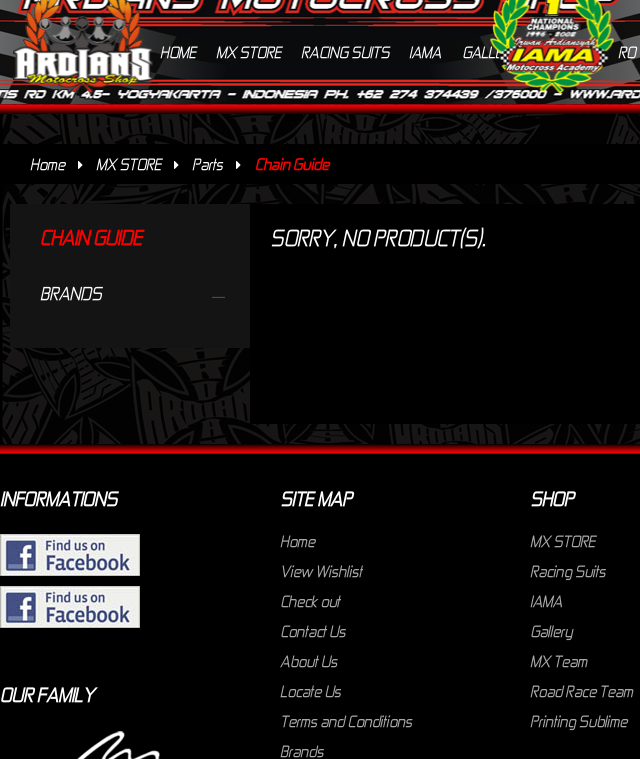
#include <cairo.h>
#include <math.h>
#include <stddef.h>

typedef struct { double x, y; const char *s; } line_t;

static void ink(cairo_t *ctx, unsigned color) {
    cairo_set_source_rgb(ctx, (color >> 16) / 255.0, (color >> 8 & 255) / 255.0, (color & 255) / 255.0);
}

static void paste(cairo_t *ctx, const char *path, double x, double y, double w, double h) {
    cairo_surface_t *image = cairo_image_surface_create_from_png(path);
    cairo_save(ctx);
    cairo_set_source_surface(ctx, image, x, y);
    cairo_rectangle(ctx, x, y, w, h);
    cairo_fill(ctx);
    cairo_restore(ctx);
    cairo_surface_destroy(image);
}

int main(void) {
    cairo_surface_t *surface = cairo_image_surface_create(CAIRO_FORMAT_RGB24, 640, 759);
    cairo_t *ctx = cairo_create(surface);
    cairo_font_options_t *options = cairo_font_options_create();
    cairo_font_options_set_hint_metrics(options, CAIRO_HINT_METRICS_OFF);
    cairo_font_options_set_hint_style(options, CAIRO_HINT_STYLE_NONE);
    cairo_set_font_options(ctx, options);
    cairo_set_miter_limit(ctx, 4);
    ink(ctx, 0x000000);
    cairo_paint(ctx);
    paste(ctx, "media/1.png", 0, 104, 640, 10);
    paste(ctx, "media/2.png", 0, 0, 640, 104);
    paste(ctx, "media/3.png", 13, 0, 140, 94);
    cairo_select_font_face(ctx, "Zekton", CAIRO_FONT_SLANT_ITALIC, CAIRO_FONT_WEIGHT_NORMAL);
    cairo_set_font_size(ctx, 14);
    ink(ctx, 0xFFFFFF);
    cairo_move_to(ctx, 462, 58);
    cairo_show_text(ctx, "GALLE");
    paste(ctx, "media/4.png", 490, 0, 124, 94);
    {
        static const line_t items[] = {
            {160, 58, "HOME"},
            {216, 58, "MX STORE"},
            {301, 58, "RACING SUITS"},
            {409, 58, "IAMA"},
            {618, 58, "RO"},
        };
        for (size_t i = 0; i < sizeof items / sizeof *items; i++) {
            cairo_move_to(ctx, items[i].x, items[i].y);
            cairo_show_text(ctx, items[i].s);
        }
    }
    paste(ctx, "media/5.png", 0, 104, 640, 10);
    paste(ctx, "media/6.png", 2, 114, 638, 330);
    ink(ctx, 0x000000);
    cairo_rectangle(ctx, 2, 144, 638, 40);
    cairo_fill(ctx);
    ink(ctx, 0xFFFFFF);
    cairo_move_to(ctx, 30, 170);
    cairo_show_text(ctx, "Home");
    paste(ctx, "media/7.png", 78, 161, 5, 8);
    cairo_move_to(ctx, 96, 170);
    cairo_show_text(ctx, "MX STORE");
    paste(ctx, "media/7.png", 174, 161, 5, 8);
    cairo_move_to(ctx, 192, 170);
    cairo_show_text(ctx, "Parts");
    paste(ctx, "media/7.png", 236, 161, 5, 8);
    cairo_select_font_face(ctx, "Zekton", CAIRO_FONT_SLANT_ITALIC, CAIRO_FONT_WEIGHT_BOLD);
    ink(ctx, 0xFF0000);
    cairo_move_to(ctx, 255, 170);
    cairo_show_text(ctx, "Chain Guide");
    ink(ctx, 0x141414);
    cairo_rectangle(ctx, 10, 204, 240, 144);
    cairo_fill(ctx);
    cairo_set_font_size(ctx, 18);
    ink(ctx, 0xFF0000);
    cairo_move_to(ctx, 40, 245);
    cairo_show_text(ctx, "CHAIN GUIDE");
    paste(ctx, "media/8.png", 212, 296, 13, 2);
    cairo_select_font_face(ctx, "Zekton", CAIRO_FONT_SLANT_ITALIC, CAIRO_FONT_WEIGHT_NORMAL);
    cairo_set_font_size(ctx, 16);
    ink(ctx, 0xFFFFFF);
    cairo_move_to(ctx, 40, 300);
    cairo_show_text(ctx, "BRANDS");
    ink(ctx, 0x000000);
    cairo_rectangle(ctx, 250, 204, 390, 220);
    cairo_fill(ctx);
    cairo_set_font_size(ctx, 20);
    ink(ctx, 0xFFFFFF);
    cairo_move_to(ctx, 270, 246);
    cairo_show_text(ctx, "SORRY, NO PRODUCT(S).");
    paste(ctx, "media/9.png", 0, 444, 640, 10);
    cairo_select_font_face(ctx, "Zekton", CAIRO_FONT_SLANT_ITALIC, CAIRO_FONT_WEIGHT_BOLD);
    cairo_set_font_size(ctx, 17.25);
    cairo_move_to(ctx, 0, 506);
    cairo_show_text(ctx, "INFORMATIONS");
    paste(ctx, "media/10.png", 0, 534, 140, 42);
    paste(ctx, "media/10.png", 0, 586, 140, 42);
    cairo_move_to(ctx, 0, 702);
    cairo_show_text(ctx, "OUR FAMILY");
    paste(ctx, "media/11.png", 77, 731, 83, 28);
    cairo_move_to(ctx, 280, 506);
    cairo_show_text(ctx, "SITE MAP");
    cairo_select_font_face(ctx, "Zekton", CAIRO_FONT_SLANT_ITALIC, CAIRO_FONT_WEIGHT_NORMAL);
    cairo_set_font_size(ctx, 14);
    ink(ctx, 0xAAAAAA);
    {
        static const line_t items[] = {
            {280, 547, "Home"},
            {280, 577, "View Wishlist"},
            {280, 607, "Check out"},
            {280, 637, "Contact Us"},
            {280, 667, "About Us"},
            {280, 697, "Locate Us"},
            {280, 727, "Terms and Conditions"},
            {280, 757, "Brands"},
        };
        for (size_t i = 0; i < sizeof items / sizeof *items; i++) {
            cairo_move_to(ctx, items[i].x, items[i].y);
            cairo_show_text(ctx, items[i].s);
        }
    }
    cairo_select_font_face(ctx, "Zekton", CAIRO_FONT_SLANT_ITALIC, CAIRO_FONT_WEIGHT_BOLD);
    cairo_set_font_size(ctx, 17.25);
    ink(ctx, 0xFFFFFF);
    cairo_move_to(ctx, 530, 506);
    cairo_show_text(ctx, "SHOP");
    cairo_select_font_face(ctx, "Zekton", CAIRO_FONT_SLANT_ITALIC, CAIRO_FONT_WEIGHT_NORMAL);
    cairo_set_font_size(ctx, 14);
    ink(ctx, 0xAAAAAA);
    {
        static const line_t items[] = {
            {530, 547, "MX STORE"},
            {530, 577, "Racing Suits"},
            {530, 607, "IAMA"},
            {530, 637, "Gallery"},
            {530, 667, "MX Team"},
            {530, 697, "Road Race Team"},
            {530, 727, "Printing Sublime"},
        };
        for (size_t i = 0; i < sizeof items / sizeof *items; i++) {
            cairo_move_to(ctx, items[i].x, items[i].y);
            cairo_show_text(ctx, items[i].s);
        }
    }
    cairo_surface_write_to_png(surface, "image.png");
    cairo_font_options_destroy(options);
    cairo_destroy(ctx);
    cairo_surface_destroy(surface);
    return 0;
}
